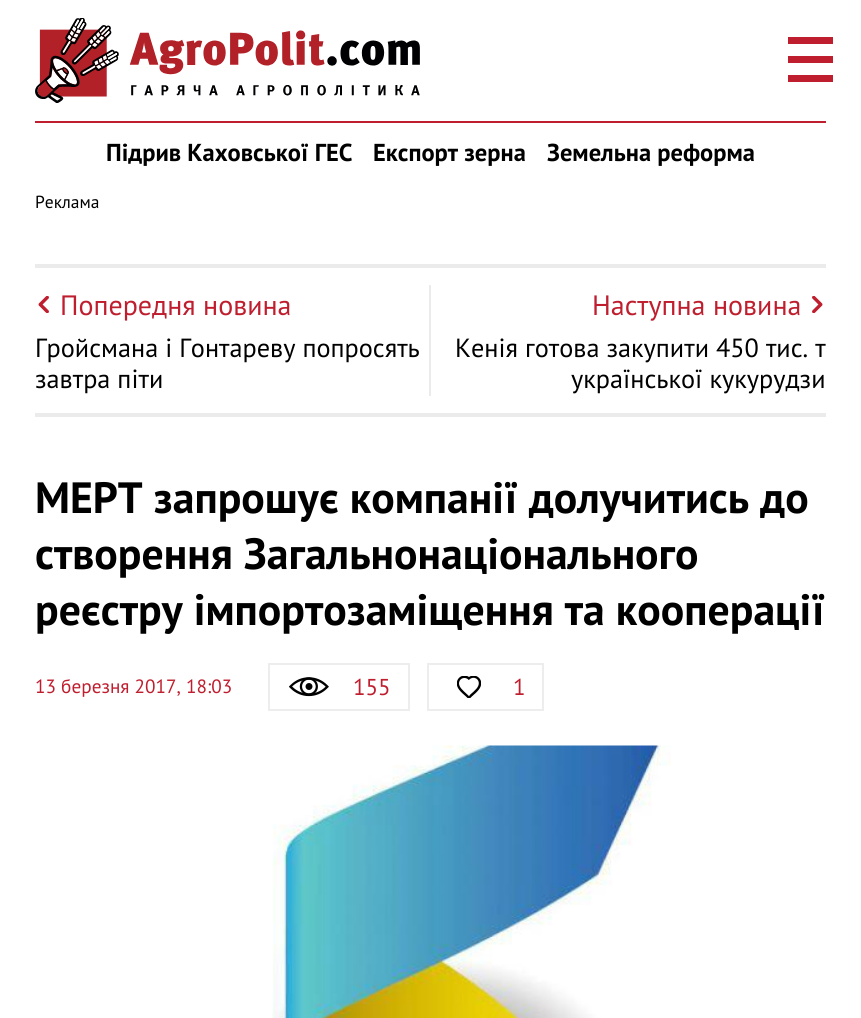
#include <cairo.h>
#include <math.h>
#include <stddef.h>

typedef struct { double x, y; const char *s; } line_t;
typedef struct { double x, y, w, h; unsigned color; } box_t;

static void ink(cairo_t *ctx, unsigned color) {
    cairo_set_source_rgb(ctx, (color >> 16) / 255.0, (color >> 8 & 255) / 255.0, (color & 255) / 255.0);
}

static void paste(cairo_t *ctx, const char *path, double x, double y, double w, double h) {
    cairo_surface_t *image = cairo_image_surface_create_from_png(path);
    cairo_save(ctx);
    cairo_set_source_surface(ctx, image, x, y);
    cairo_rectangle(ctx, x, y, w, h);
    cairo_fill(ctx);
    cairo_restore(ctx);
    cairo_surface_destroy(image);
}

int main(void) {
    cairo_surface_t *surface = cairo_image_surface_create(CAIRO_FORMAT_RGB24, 861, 1018);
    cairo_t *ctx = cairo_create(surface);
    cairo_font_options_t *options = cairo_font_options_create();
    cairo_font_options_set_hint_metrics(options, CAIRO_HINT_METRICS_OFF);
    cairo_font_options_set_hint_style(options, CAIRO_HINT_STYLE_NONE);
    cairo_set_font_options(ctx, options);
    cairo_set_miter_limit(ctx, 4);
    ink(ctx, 0xFFFFFF);
    cairo_paint(ctx);
    paste(ctx, "media/1.png", 35, 18, 385, 85);
    {
        static const box_t items[] = {
            {788, 37, 45, 7, 0xBE1E2D},
            {788, 75, 45, 7, 0xBE1E2D},
            {788, 56, 45, 7, 0xBE1E2D},
            {35, 121, 791, 2, 0xBF1E2E},
        };
        for (size_t i = 0; i < sizeof items / sizeof *items; i++) {
            ink(ctx, items[i].color);
            cairo_rectangle(ctx, items[i].x, items[i].y, items[i].w, items[i].h);
            cairo_fill(ctx);
        }
    }
    cairo_select_font_face(ctx, "PT Sans", CAIRO_FONT_SLANT_NORMAL, CAIRO_FONT_WEIGHT_BOLD);
    cairo_set_font_size(ctx, 24.5);
    ink(ctx, 0x000000);
    {
        static const line_t items[] = {
            {106, 161, "Підрив Каховської ГЕС"},
            {373, 161, "Експорт зерна"},
            {547, 161, "Земельна реформа"},
        };
        for (size_t i = 0; i < sizeof items / sizeof *items; i++) {
            cairo_move_to(ctx, items[i].x, items[i].y);
            cairo_show_text(ctx, items[i].s);
        }
    }
    cairo_select_font_face(ctx, "PT Sans", CAIRO_FONT_SLANT_NORMAL, CAIRO_FONT_WEIGHT_NORMAL);
    cairo_set_font_size(ctx, 17.5);
    cairo_move_to(ctx, 35, 208);
    cairo_show_text(ctx, "Реклама");
    {
        static const box_t items[] = {
            {35, 264, 791, 4, 0xEBEBEB},
            {35, 413, 791, 4, 0xEBEBEB},
            {429, 285, 2, 111, 0xEBEBEB},
        };
        for (size_t i = 0; i < sizeof items / sizeof *items; i++) {
            ink(ctx, items[i].color);
            cairo_rectangle(ctx, items[i].x, items[i].y, items[i].w, items[i].h);
            cairo_fill(ctx);
        }
    }
    paste(ctx, "media/2.png", 38, 296, 11, 17);
    cairo_set_font_size(ctx, 28);
    ink(ctx, 0xBF1E2E);
    cairo_move_to(ctx, 60, 315);
    cairo_show_text(ctx, "Попередня новина");
    cairo_set_font_size(ctx, 26.25);
    ink(ctx, 0x000000);
    cairo_move_to(ctx, 35, 357);
    cairo_show_text(ctx, "Гройсмана і Гонтареву попросять");
    cairo_move_to(ctx, 35, 388);
    cairo_show_text(ctx, "завтра піти");
    cairo_set_font_size(ctx, 28);
    ink(ctx, 0xBF1E2E);
    cairo_move_to(ctx, 592, 315);
    cairo_show_text(ctx, "Наступна новина");
    paste(ctx, "media/3.png", 812, 296, 11, 17);
    cairo_set_font_size(ctx, 26.25);
    ink(ctx, 0x000000);
    cairo_move_to(ctx, 455, 357);
    cairo_show_text(ctx, "Кенія готова закупити 450 тис. т");
    cairo_move_to(ctx, 571, 388);
    cairo_show_text(ctx, "української кукурудзи");
    cairo_select_font_face(ctx, "PT Sans", CAIRO_FONT_SLANT_NORMAL, CAIRO_FONT_WEIGHT_BOLD);
    cairo_set_font_size(ctx, 43.75);
    {
        static const line_t items[] = {
            {35, 513, "МЕРТ запрошує компанії долучитись до"},
            {35, 569, "створення Загальнонаціонального"},
            {35, 625, "реєстру імпортозаміщення та кооперації"},
        };
        for (size_t i = 0; i < sizeof items / sizeof *items; i++) {
            cairo_move_to(ctx, items[i].x, items[i].y);
            cairo_show_text(ctx, items[i].s);
        }
    }
    cairo_select_font_face(ctx, "PT Sans", CAIRO_FONT_SLANT_NORMAL, CAIRO_FONT_WEIGHT_NORMAL);
    cairo_set_font_size(ctx, 19.25);
    ink(ctx, 0xBF1E2E);
    cairo_move_to(ctx, 35, 693);
    cairo_show_text(ctx, "13 березня 2017, 18:03");
    cairo_rectangle(ctx, 269, 664, 140, 46);
    ink(ctx, 0xEDEDED);
    cairo_stroke(ctx);
    paste(ctx, "media/4.png", 289, 677, 40, 20);
    cairo_set_font_size(ctx, 23);
    ink(ctx, 0xBF1E2E);
    cairo_move_to(ctx, 353, 695);
    cairo_show_text(ctx, "155");
    cairo_rectangle(ctx, 428, 664, 115, 46);
    ink(ctx, 0xEDEDED);
    cairo_stroke(ctx);
    paste(ctx, "media/5.png", 457, 676, 24, 22);
    ink(ctx, 0xBF1E2E);
    cairo_move_to(ctx, 513, 695);
    cairo_show_text(ctx, "1");
    paste(ctx, "media/6.png", 272, 745, 399, 273);
    cairo_surface_write_to_png(surface, "image.png");
    cairo_font_options_destroy(options);
    cairo_destroy(ctx);
    cairo_surface_destroy(surface);
    return 0;
}
